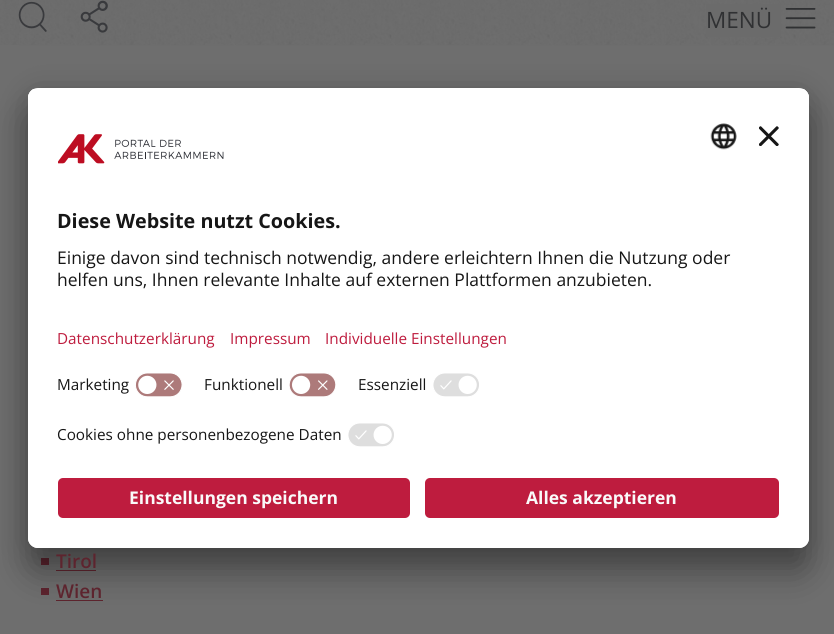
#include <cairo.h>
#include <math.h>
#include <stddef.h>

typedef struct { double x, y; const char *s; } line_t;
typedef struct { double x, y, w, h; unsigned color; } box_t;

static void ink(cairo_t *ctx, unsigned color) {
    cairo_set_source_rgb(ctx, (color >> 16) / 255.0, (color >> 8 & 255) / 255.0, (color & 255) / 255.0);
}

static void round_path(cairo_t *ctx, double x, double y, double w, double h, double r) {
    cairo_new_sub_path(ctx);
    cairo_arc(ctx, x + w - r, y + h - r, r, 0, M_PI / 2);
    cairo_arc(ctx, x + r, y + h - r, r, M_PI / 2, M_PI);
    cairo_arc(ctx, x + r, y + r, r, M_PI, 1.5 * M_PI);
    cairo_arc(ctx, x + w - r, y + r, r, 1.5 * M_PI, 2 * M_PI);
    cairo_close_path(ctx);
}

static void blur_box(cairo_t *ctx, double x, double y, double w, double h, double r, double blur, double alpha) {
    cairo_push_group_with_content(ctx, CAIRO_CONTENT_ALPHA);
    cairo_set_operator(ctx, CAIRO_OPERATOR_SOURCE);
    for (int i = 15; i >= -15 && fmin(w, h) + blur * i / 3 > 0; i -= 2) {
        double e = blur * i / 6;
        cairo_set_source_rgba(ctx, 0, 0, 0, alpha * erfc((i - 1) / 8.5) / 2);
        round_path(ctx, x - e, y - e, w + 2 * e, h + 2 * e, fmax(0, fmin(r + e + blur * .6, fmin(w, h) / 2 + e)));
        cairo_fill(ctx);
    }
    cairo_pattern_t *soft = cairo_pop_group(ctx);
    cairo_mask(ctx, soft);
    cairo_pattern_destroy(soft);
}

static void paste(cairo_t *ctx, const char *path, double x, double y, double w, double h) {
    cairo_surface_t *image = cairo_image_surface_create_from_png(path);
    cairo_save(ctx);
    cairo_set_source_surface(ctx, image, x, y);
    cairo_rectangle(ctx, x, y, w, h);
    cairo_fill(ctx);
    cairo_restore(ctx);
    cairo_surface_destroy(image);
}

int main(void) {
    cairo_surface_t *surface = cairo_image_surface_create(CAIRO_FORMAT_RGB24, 834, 634);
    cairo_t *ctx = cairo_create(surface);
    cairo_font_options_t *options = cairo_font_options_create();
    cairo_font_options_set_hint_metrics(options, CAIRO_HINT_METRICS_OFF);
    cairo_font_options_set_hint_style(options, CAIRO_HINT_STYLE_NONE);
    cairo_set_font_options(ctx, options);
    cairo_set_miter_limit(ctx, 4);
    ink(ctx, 0x6E6E6E);
    cairo_paint(ctx);
    paste(ctx, "media/1.png", 0, 0, 19, 45);
    paste(ctx, "media/2.png", 19, 0, 815, 46);
    paste(ctx, "media/3.png", 18, 1, 29, 31);
    paste(ctx, "media/4.png", 80, 0, 28, 33);
    ink(ctx, 0x6B6B6B);
    cairo_rectangle(ctx, 706, 4, 75, 33);
    cairo_fill(ctx);
    cairo_select_font_face(ctx, "Open Sans", CAIRO_FONT_SLANT_NORMAL, CAIRO_FONT_WEIGHT_NORMAL);
    cairo_set_font_size(ctx, 22.5);
    ink(ctx, 0x303133);
    cairo_move_to(ctx, 706, 28);
    cairo_show_text(ctx, "MENÜ");
    paste(ctx, "media/5.png", 785, 8, 31, 21);
    {
        static const box_t items[] = {
            {41, 558, 8, 7, 0x5D242E},
            {56, 570, 40, 1, 0x5D242E},
            {41, 588, 8, 7, 0x5D242E},
            {56, 600, 47, 1, 0x5D242E},
        };
        for (size_t i = 0; i < sizeof items / sizeof *items; i++) {
            ink(ctx, items[i].color);
            cairo_rectangle(ctx, items[i].x, items[i].y, items[i].w, items[i].h);
            cairo_fill(ctx);
        }
    }
    ink(ctx, 0x000000);
    blur_box(ctx, 28, 113, 781, 460, 10, 17.5, 0.3);
    blur_box(ctx, 28, 94, 781, 460, 10, 16, 0.22);
    ink(ctx, 0xFFFFFF);
    round_path(ctx, 28, 88, 781, 460, 10);
    cairo_fill(ctx);
    cairo_save(ctx);
    round_path(ctx, 28, 88, 781, 460, 10);
    cairo_clip(ctx);
    cairo_new_path(ctx);
    cairo_move_to(ctx, 38, 88);
    cairo_line_to(ctx, 799, 88);
    cairo_curve_to(ctx, 804.5, 88, 809, 92.5, 809, 98);
    cairo_line_to(ctx, 809, 468);
    cairo_line_to(ctx, 28, 468);
    cairo_line_to(ctx, 28, 98);
    cairo_curve_to(ctx, 28, 92.5, 32.5, 88, 38, 88);
    cairo_close_path(ctx);
    cairo_clip(ctx);
    cairo_rectangle(ctx, 28, 89, 781, 379);
    cairo_fill(ctx);
    cairo_rectangle(ctx, 28, 89, 781, 279);
    cairo_fill(ctx);
    cairo_restore(ctx);
    paste(ctx, "media/6.png", 58, 134, 166, 30);
    paste(ctx, "media/7.png", 710, 123, 27, 27);
    paste(ctx, "media/8.png", 759, 126, 20, 20);
    cairo_select_font_face(ctx, "Open Sans", CAIRO_FONT_SLANT_NORMAL, CAIRO_FONT_WEIGHT_BOLD);
    cairo_set_font_size(ctx, 19.75);
    ink(ctx, 0x161616);
    cairo_move_to(ctx, 57, 228);
    cairo_show_text(ctx, "Diese Website nutzt Cookies.");
    cairo_select_font_face(ctx, "Open Sans", CAIRO_FONT_SLANT_NORMAL, CAIRO_FONT_WEIGHT_NORMAL);
    cairo_set_font_size(ctx, 17.5);
    cairo_move_to(ctx, 57, 264);
    cairo_show_text(ctx, "Einige davon sind technisch notwendig, andere erleichtern Ihnen die Nutzung oder");
    cairo_move_to(ctx, 57, 286);
    cairo_show_text(ctx, "helfen uns, Ihnen relevante Inhalte auf externen Plattformen anzubieten.");
    cairo_set_font_size(ctx, 15.3);
    ink(ctx, 0xBE1C3E);
    {
        static const line_t items[] = {
            {57, 344, "Datenschutzerklärung"},
            {230, 344, "Impressum"},
            {325, 344, "Individuelle Einstellungen"},
        };
        for (size_t i = 0; i < sizeof items / sizeof *items; i++) {
            cairo_move_to(ctx, items[i].x, items[i].y);
            cairo_show_text(ctx, items[i].s);
        }
    }
    ink(ctx, 0x161616);
    cairo_move_to(ctx, 57, 390);
    cairo_show_text(ctx, "Marketing");
    paste(ctx, "media/9.png", 135, 373, 48, 24);
    cairo_move_to(ctx, 204, 390);
    cairo_show_text(ctx, "Funktionell");
    paste(ctx, "media/10.png", 289, 373, 47, 24);
    cairo_move_to(ctx, 358, 390);
    cairo_show_text(ctx, "Essenziell");
    paste(ctx, "media/11.png", 433, 373, 46, 24);
    cairo_move_to(ctx, 57, 440);
    cairo_show_text(ctx, "Cookies ohne personenbezogene Daten");
    paste(ctx, "media/11.png", 348, 423, 46, 24);
    ink(ctx, 0xFFFFFF);
    cairo_new_path(ctx);
    cairo_move_to(ctx, 28, 468);
    cairo_line_to(ctx, 809, 468);
    cairo_line_to(ctx, 809, 538);
    cairo_curve_to(ctx, 809, 543.5, 804.5, 548, 799, 548);
    cairo_line_to(ctx, 38, 548);
    cairo_curve_to(ctx, 32.5, 548, 28, 543.5, 28, 538);
    cairo_close_path(ctx);
    cairo_fill(ctx);
    ink(ctx, 0xBE1C3E);
    round_path(ctx, 58, 478, 352, 40, 5);
    cairo_fill(ctx);
    cairo_select_font_face(ctx, "Open Sans", CAIRO_FONT_SLANT_NORMAL, CAIRO_FONT_WEIGHT_BOLD);
    cairo_set_font_size(ctx, 17.5);
    ink(ctx, 0xFAFAFA);
    cairo_move_to(ctx, 129, 504);
    cairo_show_text(ctx, "Einstellungen speichern");
    ink(ctx, 0xBE1C3E);
    round_path(ctx, 425, 478, 354, 40, 5);
    cairo_fill(ctx);
    ink(ctx, 0xFAFAFA);
    cairo_move_to(ctx, 526, 504);
    cairo_show_text(ctx, "Alles akzeptieren");
    cairo_select_font_face(ctx, "Open Sans SemiBold", CAIRO_FONT_SLANT_NORMAL, CAIRO_FONT_WEIGHT_NORMAL);
    cairo_set_font_size(ctx, 19);
    ink(ctx, 0x5D242E);
    cairo_move_to(ctx, 56, 568);
    cairo_show_text(ctx, "Tirol");
    cairo_move_to(ctx, 56, 598);
    cairo_show_text(ctx, "Wien");
    cairo_surface_write_to_png(surface, "image.png");
    cairo_font_options_destroy(options);
    cairo_destroy(ctx);
    cairo_surface_destroy(surface);
    return 0;
}
